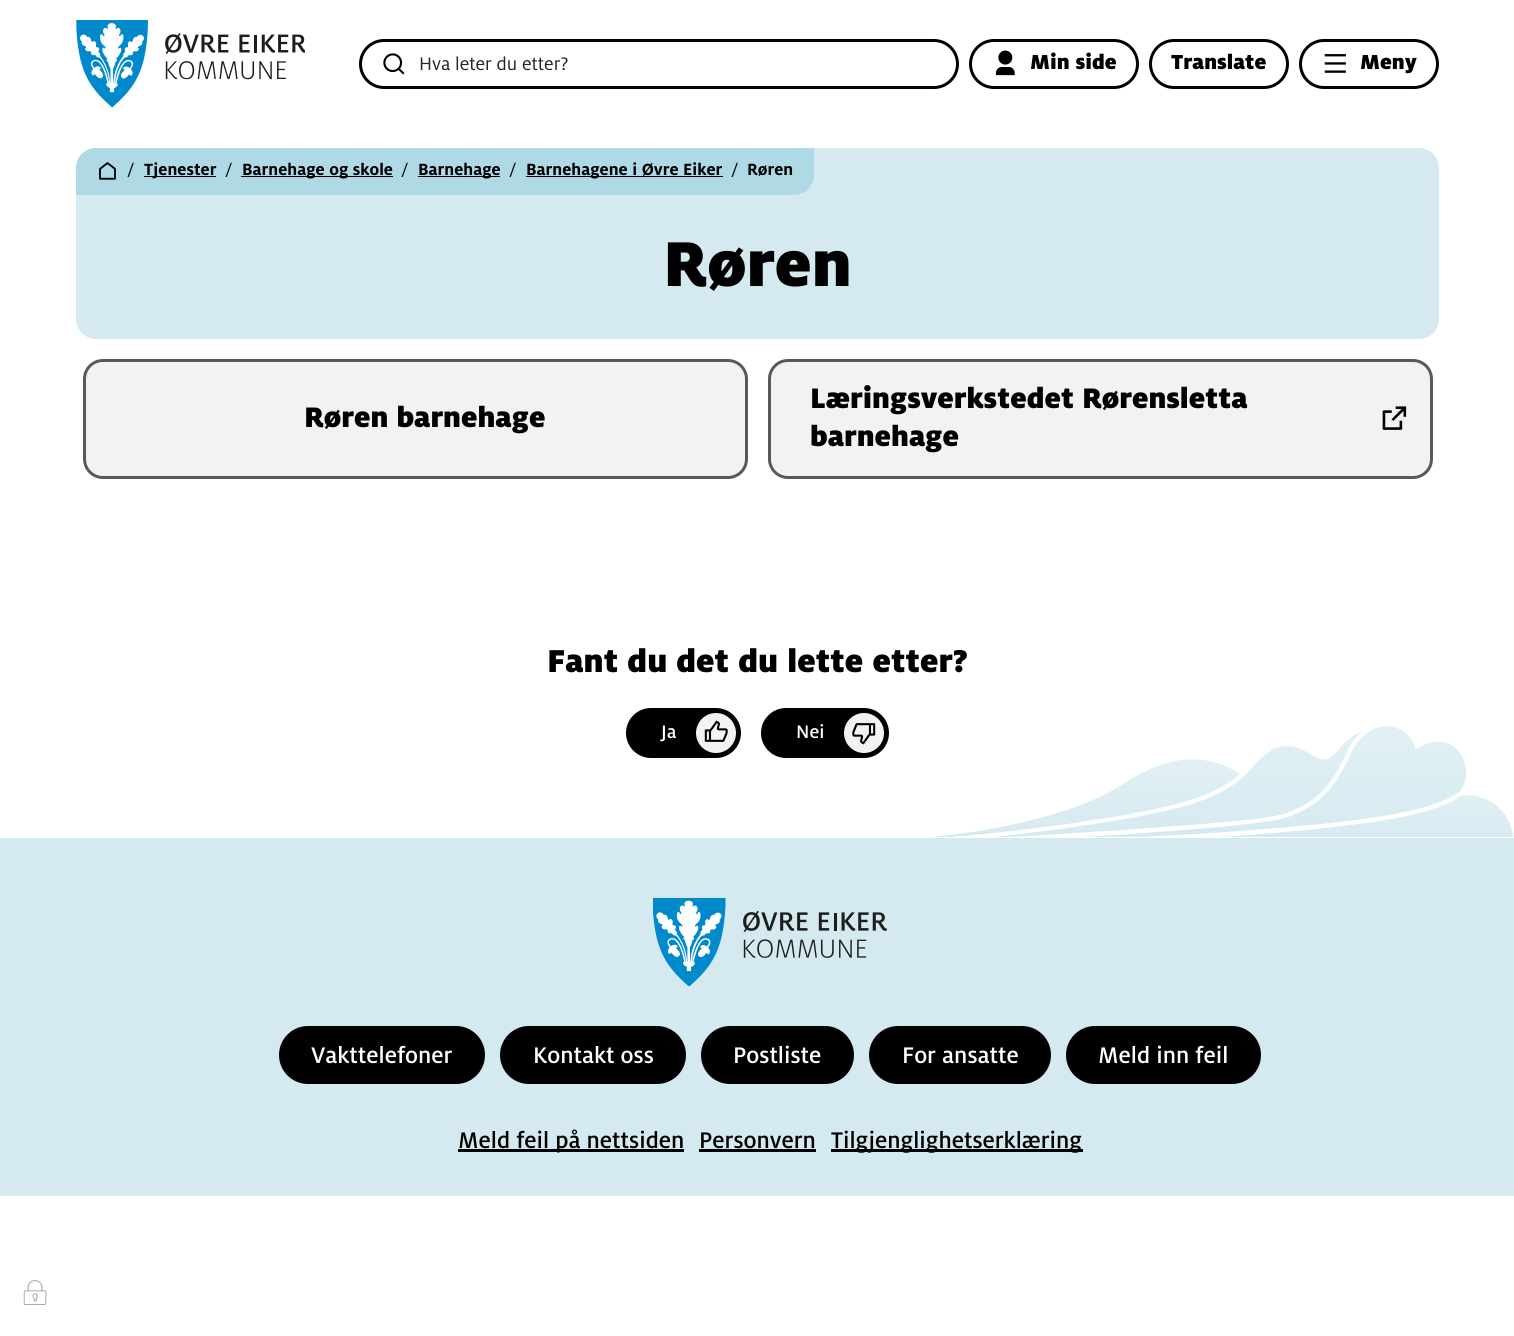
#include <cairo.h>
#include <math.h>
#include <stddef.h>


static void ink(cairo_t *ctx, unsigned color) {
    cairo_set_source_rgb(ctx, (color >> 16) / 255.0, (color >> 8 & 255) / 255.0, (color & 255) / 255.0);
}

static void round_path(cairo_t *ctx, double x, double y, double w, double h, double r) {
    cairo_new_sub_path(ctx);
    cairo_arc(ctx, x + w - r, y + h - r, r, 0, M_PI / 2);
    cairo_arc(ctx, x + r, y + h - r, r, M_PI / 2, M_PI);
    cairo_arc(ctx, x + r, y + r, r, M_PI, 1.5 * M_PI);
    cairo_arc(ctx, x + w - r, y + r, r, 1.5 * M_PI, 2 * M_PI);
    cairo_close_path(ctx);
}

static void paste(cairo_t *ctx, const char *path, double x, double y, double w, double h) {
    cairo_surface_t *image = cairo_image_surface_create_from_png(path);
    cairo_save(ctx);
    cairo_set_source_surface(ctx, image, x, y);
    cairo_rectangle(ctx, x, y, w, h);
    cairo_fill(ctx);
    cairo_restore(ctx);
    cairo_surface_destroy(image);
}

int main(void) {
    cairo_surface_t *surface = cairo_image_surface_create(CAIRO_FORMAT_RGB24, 1514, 1336);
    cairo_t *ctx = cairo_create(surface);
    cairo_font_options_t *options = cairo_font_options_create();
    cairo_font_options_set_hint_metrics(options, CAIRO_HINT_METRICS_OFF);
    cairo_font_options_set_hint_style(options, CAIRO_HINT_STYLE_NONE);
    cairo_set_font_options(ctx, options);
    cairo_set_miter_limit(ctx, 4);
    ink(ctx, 0xFFFFFF);
    cairo_paint(ctx);
    paste(ctx, "media/1.png", 76, 20, 229, 88);
    round_path(ctx, 360.5, 40.5, 597, 47, 23.5);
    ink(ctx, 0x000000);
    cairo_set_line_width(ctx, 3);
    cairo_stroke(ctx);
    paste(ctx, "media/2.png", 383, 53, 22, 22);
    cairo_select_font_face(ctx, "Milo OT", CAIRO_FONT_SLANT_NORMAL, CAIRO_FONT_WEIGHT_NORMAL);
    cairo_set_font_size(ctx, 20);
    ink(ctx, 0x232323);
    cairo_move_to(ctx, 419, 70);
    cairo_show_text(ctx, "Hva leter du etter?");
    round_path(ctx, 970.5, 40.5, 167, 47, 23.5);
    ink(ctx, 0x000000);
    cairo_stroke(ctx);
    paste(ctx, "media/3.png", 995, 50, 20, 26);
    cairo_select_font_face(ctx, "Milo OT Black", CAIRO_FONT_SLANT_NORMAL, CAIRO_FONT_WEIGHT_NORMAL);
    cairo_set_font_size(ctx, 22.5);
    cairo_move_to(ctx, 1030, 69);
    cairo_show_text(ctx, "Min side");
    round_path(ctx, 1150.5, 40.5, 137, 47, 23.5);
    cairo_stroke(ctx);
    cairo_move_to(ctx, 1171, 69);
    cairo_show_text(ctx, "Translate");
    round_path(ctx, 1300.5, 40.5, 137, 47, 23.5);
    cairo_stroke(ctx);
    paste(ctx, "media/4.png", 1324, 54, 22, 19);
    cairo_move_to(ctx, 1360, 69);
    cairo_show_text(ctx, "Meny");
    ink(ctx, 0xD5EAF0);
    round_path(ctx, 76, 148, 1363, 191, 20);
    cairo_fill(ctx);
    ink(ctx, 0xAFD9E5);
    cairo_new_path(ctx);
    cairo_move_to(ctx, 96, 148);
    cairo_line_to(ctx, 814, 148);
    cairo_line_to(ctx, 814, 175);
    cairo_curve_to(ctx, 814, 186, 805, 195, 794, 195);
    cairo_line_to(ctx, 76, 195);
    cairo_line_to(ctx, 76, 168);
    cairo_curve_to(ctx, 76, 157, 85, 148, 96, 148);
    cairo_close_path(ctx);
    cairo_fill(ctx);
    paste(ctx, "media/5.png", 99, 162, 17, 18);
    cairo_select_font_face(ctx, "Milo OT", CAIRO_FONT_SLANT_NORMAL, CAIRO_FONT_WEIGHT_NORMAL);
    cairo_set_font_size(ctx, 18);
    ink(ctx, 0x000000);
    cairo_move_to(ctx, 127, 175);
    cairo_show_text(ctx, "/");
    cairo_rectangle(ctx, 144, 176, 72, 1);
    cairo_fill(ctx);
    cairo_select_font_face(ctx, "Milo OT", CAIRO_FONT_SLANT_NORMAL, CAIRO_FONT_WEIGHT_BOLD);
    cairo_move_to(ctx, 144, 175);
    cairo_show_text(ctx, "Tjenester");
    cairo_select_font_face(ctx, "Milo OT", CAIRO_FONT_SLANT_NORMAL, CAIRO_FONT_WEIGHT_NORMAL);
    cairo_move_to(ctx, 225, 175);
    cairo_show_text(ctx, "/");
    cairo_rectangle(ctx, 241, 176, 152, 1);
    cairo_fill(ctx);
    cairo_select_font_face(ctx, "Milo OT", CAIRO_FONT_SLANT_NORMAL, CAIRO_FONT_WEIGHT_BOLD);
    cairo_move_to(ctx, 242, 175);
    cairo_show_text(ctx, "Barnehage og skole");
    cairo_select_font_face(ctx, "Milo OT", CAIRO_FONT_SLANT_NORMAL, CAIRO_FONT_WEIGHT_NORMAL);
    cairo_move_to(ctx, 401, 175);
    cairo_show_text(ctx, "/");
    cairo_rectangle(ctx, 418, 176, 82, 1);
    cairo_fill(ctx);
    cairo_select_font_face(ctx, "Milo OT", CAIRO_FONT_SLANT_NORMAL, CAIRO_FONT_WEIGHT_BOLD);
    cairo_move_to(ctx, 418, 175);
    cairo_show_text(ctx, "Barnehage");
    cairo_select_font_face(ctx, "Milo OT", CAIRO_FONT_SLANT_NORMAL, CAIRO_FONT_WEIGHT_NORMAL);
    cairo_move_to(ctx, 509, 175);
    cairo_show_text(ctx, "/");
    cairo_rectangle(ctx, 526, 176, 197, 1);
    cairo_fill(ctx);
    cairo_select_font_face(ctx, "Milo OT", CAIRO_FONT_SLANT_NORMAL, CAIRO_FONT_WEIGHT_BOLD);
    cairo_move_to(ctx, 526, 175);
    cairo_show_text(ctx, "Barnehagene i Øvre Eiker");
    cairo_select_font_face(ctx, "Milo OT", CAIRO_FONT_SLANT_NORMAL, CAIRO_FONT_WEIGHT_NORMAL);
    cairo_move_to(ctx, 731, 175);
    cairo_show_text(ctx, "/");
    cairo_select_font_face(ctx, "Milo OT", CAIRO_FONT_SLANT_NORMAL, CAIRO_FONT_WEIGHT_BOLD);
    cairo_move_to(ctx, 747, 175);
    cairo_show_text(ctx, "Røren");
    cairo_select_font_face(ctx, "Milo OT Black", CAIRO_FONT_SLANT_NORMAL, CAIRO_FONT_WEIGHT_NORMAL);
    cairo_set_font_size(ctx, 70);
    cairo_move_to(ctx, 663, 286);
    cairo_show_text(ctx, "Røren");
    ink(ctx, 0xF1F3F3);
    round_path(ctx, 84.5, 360.5, 662, 117, 18.5);
    cairo_fill_preserve(ctx);
    ink(ctx, 0x58595B);
    cairo_stroke(ctx);
    cairo_set_font_size(ctx, 31.25);
    ink(ctx, 0x000000);
    cairo_move_to(ctx, 304, 427);
    cairo_show_text(ctx, "Røren barnehage");
    ink(ctx, 0xF1F3F3);
    round_path(ctx, 769.5, 360.5, 662, 117, 18.5);
    cairo_fill_preserve(ctx);
    ink(ctx, 0x58595B);
    cairo_stroke(ctx);
    ink(ctx, 0x000000);
    cairo_move_to(ctx, 810, 408);
    cairo_show_text(ctx, "Læringsverkstedet Rørensletta");
    paste(ctx, "media/6.png", 1382, 406, 25, 24);
    cairo_move_to(ctx, 810, 446);
    cairo_show_text(ctx, "barnehage");
    cairo_set_font_size(ctx, 35);
    cairo_move_to(ctx, 547, 672);
    cairo_show_text(ctx, "Fant du det du lette etter?");
    round_path(ctx, 626, 708, 115, 50, 25);
    cairo_fill(ctx);
    cairo_select_font_face(ctx, "Milo OT Medium", CAIRO_FONT_SLANT_NORMAL, CAIRO_FONT_WEIGHT_NORMAL);
    cairo_set_font_size(ctx, 20);
    ink(ctx, 0xFFFFFF);
    cairo_move_to(ctx, 661, 738);
    cairo_show_text(ctx, "Ja");
    ink(ctx, 0xF1F3F3);
    cairo_new_path(ctx);
    cairo_arc(ctx, 716, 733, 20, 0, 2 * M_PI);
    cairo_fill(ctx);
    paste(ctx, "media/7.png", 704, 720, 24, 22);
    ink(ctx, 0x000000);
    round_path(ctx, 761, 708, 128, 50, 25);
    cairo_fill(ctx);
    ink(ctx, 0xFFFFFF);
    cairo_move_to(ctx, 796, 738);
    cairo_show_text(ctx, "Nei");
    ink(ctx, 0xF1F3F3);
    cairo_new_path(ctx);
    cairo_arc(ctx, 864, 733, 20, 0, 2 * M_PI);
    cairo_fill(ctx);
    paste(ctx, "media/8.png", 852, 723, 24, 22);
    ink(ctx, 0xD5EAF0);
    cairo_rectangle(ctx, 0, 838, 1514, 358);
    cairo_fill(ctx);
    paste(ctx, "media/9.png", 933, 726, 581, 111);
    paste(ctx, "media/10.png", 653, 898, 234, 88);
    ink(ctx, 0x000000);
    round_path(ctx, 280.5, 1027.5, 203, 55, 27.5);
    cairo_fill_preserve(ctx);
    cairo_stroke(ctx);
    cairo_set_font_size(ctx, 25);
    ink(ctx, 0xFFFFFF);
    cairo_move_to(ctx, 311, 1063);
    cairo_show_text(ctx, "Vakttelefoner");
    ink(ctx, 0x000000);
    round_path(ctx, 501.5, 1027.5, 183, 55, 27.5);
    cairo_fill_preserve(ctx);
    cairo_stroke(ctx);
    ink(ctx, 0xFFFFFF);
    cairo_move_to(ctx, 533, 1063);
    cairo_show_text(ctx, "Kontakt oss");
    ink(ctx, 0x000000);
    round_path(ctx, 702.5, 1027.5, 150, 55, 27.5);
    cairo_fill_preserve(ctx);
    cairo_stroke(ctx);
    ink(ctx, 0xFFFFFF);
    cairo_move_to(ctx, 733, 1063);
    cairo_show_text(ctx, "Postliste");
    ink(ctx, 0x000000);
    round_path(ctx, 870.5, 1027.5, 179, 55, 27.5);
    cairo_fill_preserve(ctx);
    cairo_stroke(ctx);
    ink(ctx, 0xFFFFFF);
    cairo_move_to(ctx, 902, 1063);
    cairo_show_text(ctx, "For ansatte");
    ink(ctx, 0x000000);
    round_path(ctx, 1067.5, 1027.5, 192, 55, 27.5);
    cairo_fill_preserve(ctx);
    cairo_stroke(ctx);
    ink(ctx, 0xFFFFFF);
    cairo_move_to(ctx, 1098, 1063);
    cairo_show_text(ctx, "Meld inn feil");
    ink(ctx, 0x000000);
    cairo_rectangle(ctx, 458, 1149, 226, 3);
    cairo_fill(ctx);
    cairo_move_to(ctx, 458, 1148);
    cairo_show_text(ctx, "Meld feil på nettsiden");
    cairo_move_to(ctx, 699, 1148);
    cairo_show_text(ctx, "Personvern");
    cairo_rectangle(ctx, 699, 1149, 117, 3);
    cairo_fill(ctx);
    cairo_rectangle(ctx, 831, 1149, 252, 3);
    cairo_fill(ctx);
    cairo_move_to(ctx, 831, 1148);
    cairo_show_text(ctx, "Tilgjenglighetserklæring");
    paste(ctx, "media/11.png", 23, 1280, 24, 25);
    cairo_surface_write_to_png(surface, "image.png");
    cairo_font_options_destroy(options);
    cairo_destroy(ctx);
    cairo_surface_destroy(surface);
    return 0;
}
